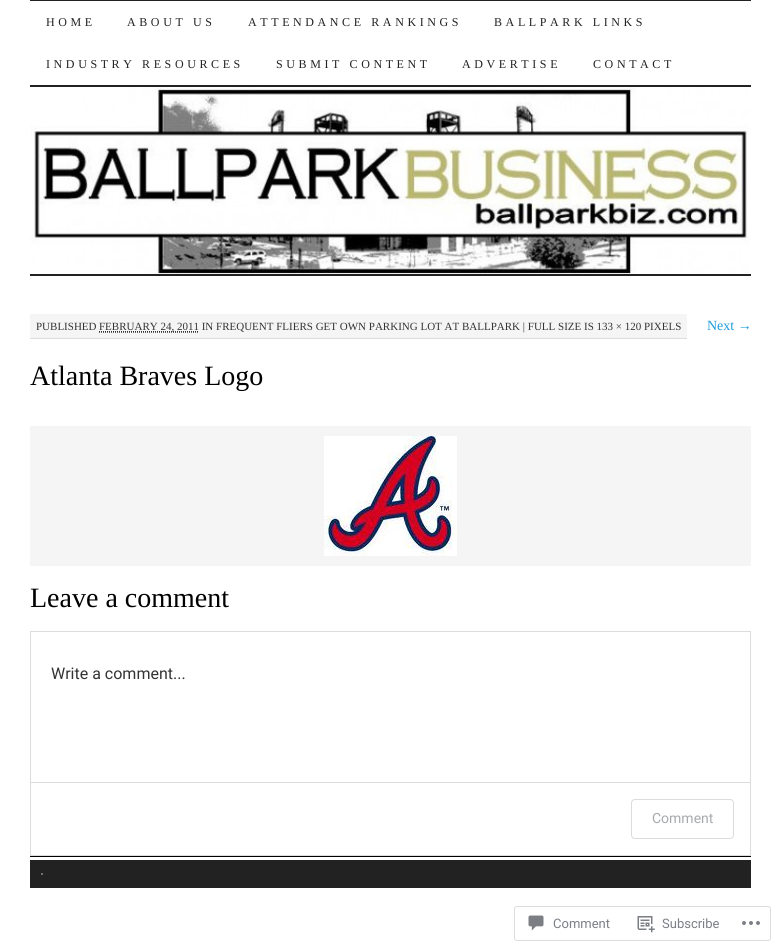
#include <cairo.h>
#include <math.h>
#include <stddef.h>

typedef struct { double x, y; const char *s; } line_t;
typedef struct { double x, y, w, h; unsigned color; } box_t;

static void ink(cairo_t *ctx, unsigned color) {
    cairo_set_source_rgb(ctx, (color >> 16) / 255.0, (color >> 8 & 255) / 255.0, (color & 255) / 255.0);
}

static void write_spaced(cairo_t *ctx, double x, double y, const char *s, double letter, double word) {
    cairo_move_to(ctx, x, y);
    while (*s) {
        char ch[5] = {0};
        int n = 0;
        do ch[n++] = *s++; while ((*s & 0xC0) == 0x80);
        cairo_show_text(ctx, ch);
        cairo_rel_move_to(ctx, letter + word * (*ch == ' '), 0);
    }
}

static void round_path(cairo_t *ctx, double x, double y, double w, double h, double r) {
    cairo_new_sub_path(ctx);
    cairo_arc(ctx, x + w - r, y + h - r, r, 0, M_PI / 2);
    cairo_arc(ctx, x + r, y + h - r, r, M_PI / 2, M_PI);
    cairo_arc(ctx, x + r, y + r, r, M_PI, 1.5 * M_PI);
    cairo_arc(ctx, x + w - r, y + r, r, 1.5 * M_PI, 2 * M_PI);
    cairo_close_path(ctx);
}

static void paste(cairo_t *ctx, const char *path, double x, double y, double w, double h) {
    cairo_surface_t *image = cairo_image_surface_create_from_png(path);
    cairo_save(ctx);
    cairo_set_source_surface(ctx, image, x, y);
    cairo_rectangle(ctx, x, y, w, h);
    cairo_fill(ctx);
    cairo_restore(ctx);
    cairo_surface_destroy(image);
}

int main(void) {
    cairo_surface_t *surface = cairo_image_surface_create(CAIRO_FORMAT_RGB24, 781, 951);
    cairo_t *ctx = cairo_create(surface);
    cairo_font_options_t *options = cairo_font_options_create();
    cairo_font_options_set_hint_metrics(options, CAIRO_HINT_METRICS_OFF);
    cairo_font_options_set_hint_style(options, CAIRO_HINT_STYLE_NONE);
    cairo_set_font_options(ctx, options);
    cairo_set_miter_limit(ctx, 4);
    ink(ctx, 0xFFFFFF);
    cairo_paint(ctx);
    ink(ctx, 0x222222);
    cairo_rectangle(ctx, 30, 0, 721, 1);
    cairo_fill(ctx);
    cairo_rectangle(ctx, 30, 85, 721, 2);
    cairo_fill(ctx);
    cairo_select_font_face(ctx, "Liberation Serif", CAIRO_FONT_SLANT_NORMAL, CAIRO_FONT_WEIGHT_NORMAL);
    cairo_set_font_size(ctx, 12);
    {
        static const line_t items[] = {
            {46, 26, "HOME"},
            {127, 26, "ABOUT US"},
            {248, 26, "ATTENDANCE RANKINGS"},
            {494, 26, "BALLPARK LINKS"},
            {46, 68, "INDUSTRY RESOURCES"},
            {276, 68, "SUBMIT CONTENT"},
            {462, 68, "ADVERTISE"},
            {593, 68, "CONTACT"},
        };
        for (size_t i = 0; i < sizeof items / sizeof *items; i++) {
            write_spaced(ctx, items[i].x, items[i].y, items[i].s, 3.6, 0);
        }
    }
    paste(ctx, "media/1.png", 30, 87, 719, 187);
    {
        static const box_t items[] = {
            {30, 274, 721, 2, 0x222222},
            {30, 314, 657, 24, 0xF5F5F5},
            {30, 338, 657, 1, 0xDDDDDD},
        };
        for (size_t i = 0; i < sizeof items / sizeof *items; i++) {
            ink(ctx, items[i].color);
            cairo_rectangle(ctx, items[i].x, items[i].y, items[i].w, items[i].h);
            cairo_fill(ctx);
        }
    }
    cairo_set_font_size(ctx, 11);
    ink(ctx, 0x333333);
    cairo_move_to(ctx, 36, 330);
    cairo_show_text(ctx, "PUBLISHED");
    cairo_new_path(ctx);
    cairo_move_to(ctx, 99, 332.5);
    cairo_line_to(ctx, 199, 332.5);
    ink(ctx, 0x666666);
    cairo_set_line_width(ctx, 1);
    cairo_set_dash(ctx, (double[]){1, 1}, 2, 0);
    cairo_stroke(ctx);
    cairo_new_path(ctx);
    cairo_move_to(ctx, 99, 331.5);
    cairo_line_to(ctx, 199, 331.5);
    ink(ctx, 0x333333);
    cairo_stroke(ctx);
    cairo_move_to(ctx, 99, 330);
    cairo_show_text(ctx, "FEBRUARY 24, 2011 IN FREQUENT FLIERS GET OWN PARKING LOT AT BALLPARK | FULL SIZE IS 133 × 120 PIXELS");
    cairo_set_font_size(ctx, 14);
    ink(ctx, 0x1C9BDC);
    cairo_move_to(ctx, 707, 330);
    cairo_show_text(ctx, "Next →");
    cairo_set_font_size(ctx, 28);
    ink(ctx, 0x000000);
    cairo_move_to(ctx, 30, 385);
    cairo_show_text(ctx, "Atlanta Braves Logo");
    ink(ctx, 0xF5F5F5);
    cairo_rectangle(ctx, 30, 426, 721, 140);
    cairo_fill(ctx);
    paste(ctx, "media/2.png", 324, 436, 133, 120);
    ink(ctx, 0x000000);
    cairo_move_to(ctx, 30, 607);
    cairo_show_text(ctx, "Leave a comment");
    cairo_rectangle(ctx, 30.5, 631.5, 720, 224);
    ink(ctx, 0xDCDCDE);
    cairo_set_dash(ctx, NULL, 0, 0);
    cairo_stroke(ctx);
    cairo_select_font_face(ctx, "Roboto", CAIRO_FONT_SLANT_NORMAL, CAIRO_FONT_WEIGHT_NORMAL);
    cairo_set_font_size(ctx, 16);
    ink(ctx, 0x333333);
    cairo_move_to(ctx, 51, 679);
    cairo_show_text(ctx, "Write a comment...");
    ink(ctx, 0xDCDCDE);
    cairo_rectangle(ctx, 31, 782, 719, 1);
    cairo_fill(ctx);
    round_path(ctx, 631.5, 799.5, 102, 39, 3.5);
    cairo_stroke(ctx);
    cairo_set_font_size(ctx, 14);
    ink(ctx, 0xA7AAAD);
    cairo_move_to(ctx, 652, 823);
    cairo_show_text(ctx, "Comment");
    ink(ctx, 0x000000);
    cairo_rectangle(ctx, 30, 856, 721, 1);
    cairo_fill(ctx);
    ink(ctx, 0x222222);
    cairo_rectangle(ctx, 30, 860, 721, 28);
    cairo_fill(ctx);
    cairo_select_font_face(ctx, "Liberation Serif", CAIRO_FONT_SLANT_NORMAL, CAIRO_FONT_WEIGHT_NORMAL);
    cairo_set_font_size(ctx, 12);
    ink(ctx, 0xFFFFFF);
    cairo_move_to(ctx, 40, 878);
    cairo_show_text(ctx, "·");
    round_path(ctx, 514.5, 906.5, 256, 34, 2.5);
    ink(ctx, 0xDDDDDF);
    cairo_stroke(ctx);
    paste(ctx, "media/3.png", 528, 915, 16, 16);
    cairo_select_font_face(ctx, "Roboto", CAIRO_FONT_SLANT_NORMAL, CAIRO_FONT_WEIGHT_NORMAL);
    cairo_set_font_size(ctx, 13);
    ink(ctx, 0x7B7F85);
    cairo_move_to(ctx, 553, 928);
    cairo_show_text(ctx, "Comment");
    paste(ctx, "media/4.png", 637, 916, 18, 17);
    cairo_move_to(ctx, 662, 928);
    cairo_show_text(ctx, "Subscribe");
    paste(ctx, "media/5.png", 742, 921, 18, 4);
    cairo_surface_write_to_png(surface, "image.png");
    cairo_font_options_destroy(options);
    cairo_destroy(ctx);
    cairo_surface_destroy(surface);
    return 0;
}
